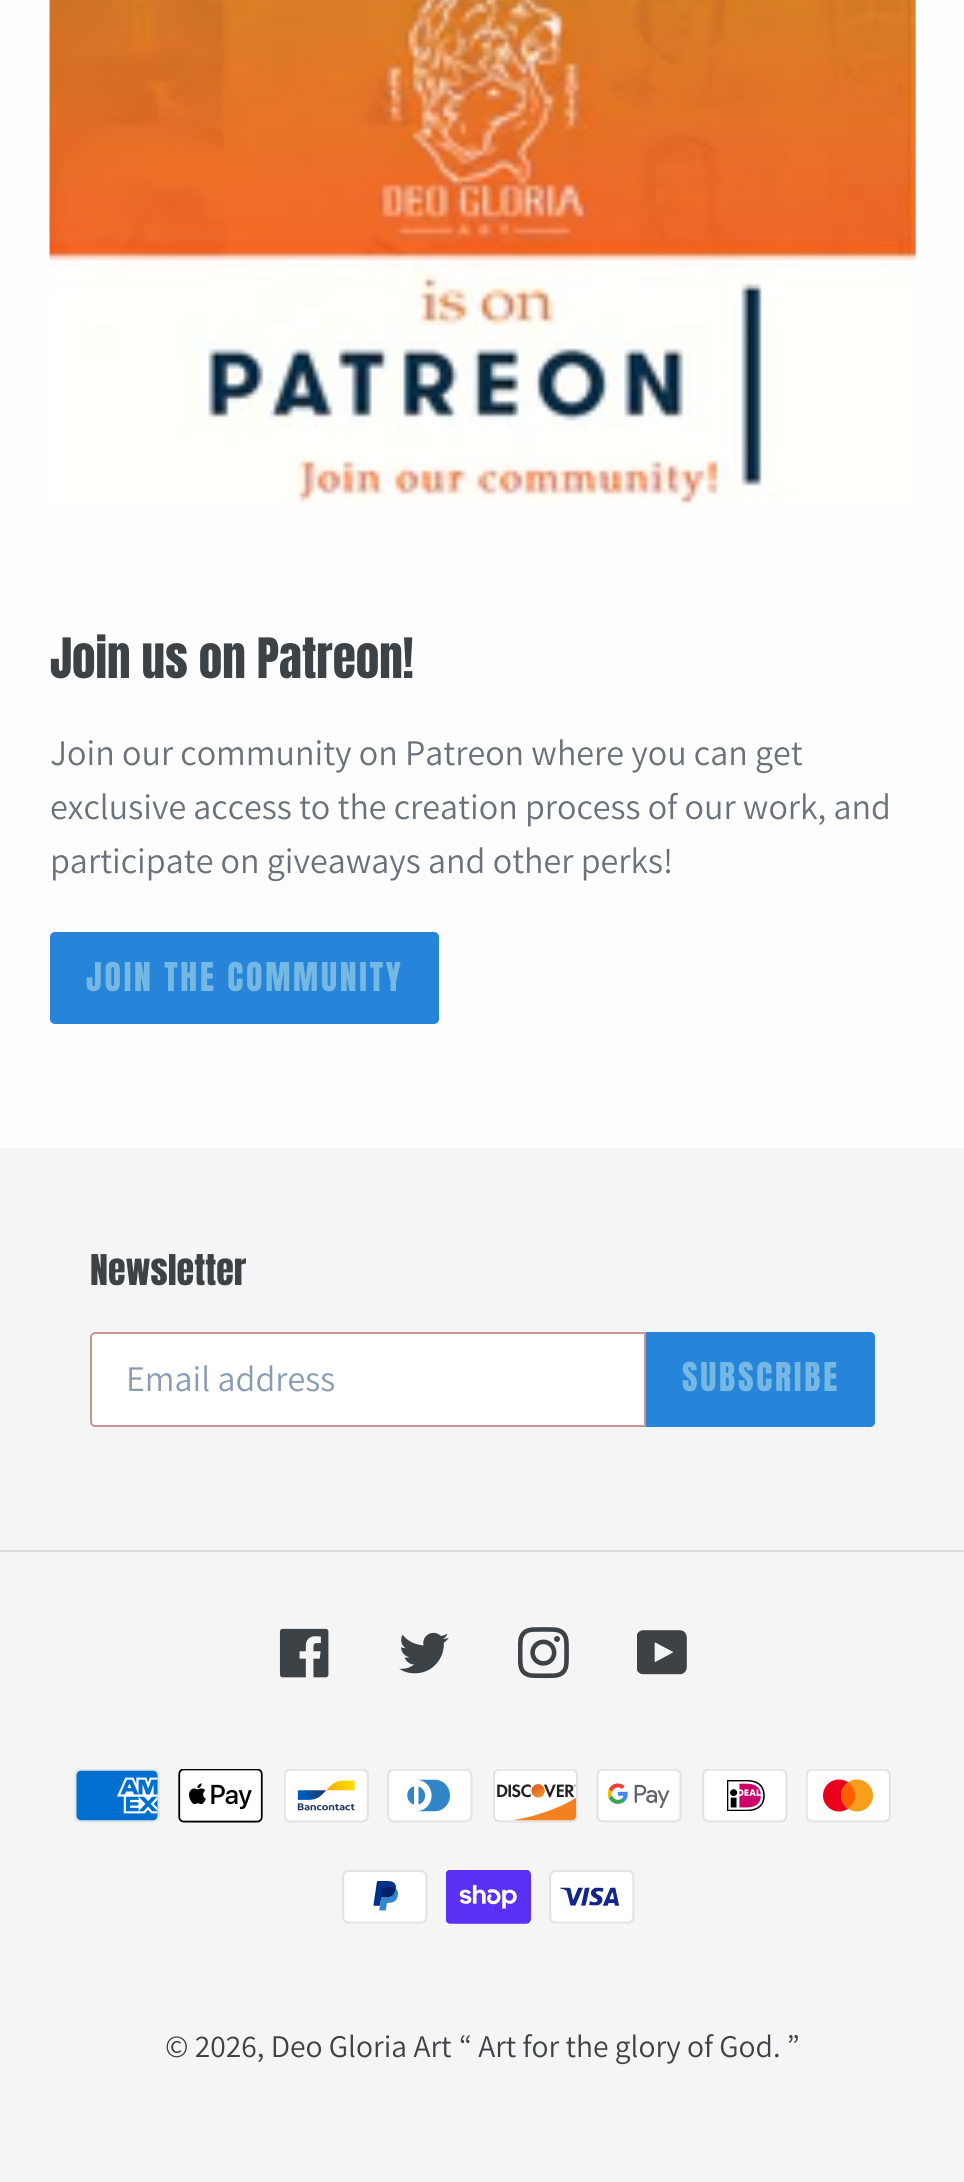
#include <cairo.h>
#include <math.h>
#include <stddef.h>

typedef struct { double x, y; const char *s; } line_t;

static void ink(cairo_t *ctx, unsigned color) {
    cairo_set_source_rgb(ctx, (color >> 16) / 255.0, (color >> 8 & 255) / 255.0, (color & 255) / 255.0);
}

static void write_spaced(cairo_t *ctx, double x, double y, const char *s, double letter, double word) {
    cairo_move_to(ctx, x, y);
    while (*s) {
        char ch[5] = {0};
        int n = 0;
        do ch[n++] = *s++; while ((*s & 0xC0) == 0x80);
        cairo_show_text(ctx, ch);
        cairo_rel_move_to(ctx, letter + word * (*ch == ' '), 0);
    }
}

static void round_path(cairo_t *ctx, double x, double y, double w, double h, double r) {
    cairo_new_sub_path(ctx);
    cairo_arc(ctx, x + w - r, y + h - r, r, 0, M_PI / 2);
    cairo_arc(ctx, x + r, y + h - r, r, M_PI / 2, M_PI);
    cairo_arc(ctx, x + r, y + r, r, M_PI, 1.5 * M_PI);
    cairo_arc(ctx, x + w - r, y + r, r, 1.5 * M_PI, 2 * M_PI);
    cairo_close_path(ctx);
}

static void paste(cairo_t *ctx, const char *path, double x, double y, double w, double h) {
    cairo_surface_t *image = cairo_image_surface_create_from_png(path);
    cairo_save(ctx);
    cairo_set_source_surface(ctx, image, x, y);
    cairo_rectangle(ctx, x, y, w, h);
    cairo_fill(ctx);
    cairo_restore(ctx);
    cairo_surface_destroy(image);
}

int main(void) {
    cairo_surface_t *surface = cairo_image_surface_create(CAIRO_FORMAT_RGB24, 964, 2182);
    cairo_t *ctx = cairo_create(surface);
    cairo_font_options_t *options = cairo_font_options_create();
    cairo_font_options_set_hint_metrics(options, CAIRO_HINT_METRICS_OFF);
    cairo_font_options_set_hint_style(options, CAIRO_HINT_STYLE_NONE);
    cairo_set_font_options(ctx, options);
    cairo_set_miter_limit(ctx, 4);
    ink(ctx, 0xFDFDFD);
    cairo_paint(ctx);
    paste(ctx, "media/1.png", 49, 0, 867, 506);
    cairo_select_font_face(ctx, "Anton", CAIRO_FONT_SLANT_NORMAL, CAIRO_FONT_WEIGHT_NORMAL);
    cairo_set_font_size(ctx, 47.25);
    ink(ctx, 0x3D4246);
    cairo_move_to(ctx, 50, 678);
    cairo_show_text(ctx, "Join us on Patreon!");
    cairo_select_font_face(ctx, "Assistant", CAIRO_FONT_SLANT_NORMAL, CAIRO_FONT_WEIGHT_NORMAL);
    cairo_set_font_size(ctx, 36);
    ink(ctx, 0x69727B);
    {
        static const line_t items[] = {
            {50, 765, "Join our community on Patreon where you can get"},
            {50, 819, "exclusive access to the creation process of our work, and"},
            {50, 873, "participate on giveaways and other perks!"},
        };
        for (size_t i = 0; i < sizeof items / sizeof *items; i++) {
            cairo_move_to(ctx, items[i].x, items[i].y);
            cairo_show_text(ctx, items[i].s);
        }
    }
    ink(ctx, 0x2685D9);
    round_path(ctx, 50, 932, 389, 92, 5);
    cairo_fill(ctx);
    cairo_select_font_face(ctx, "Anton", CAIRO_FONT_SLANT_NORMAL, CAIRO_FONT_WEIGHT_NORMAL);
    cairo_set_font_size(ctx, 33.75);
    ink(ctx, 0x74B8E3);
    write_spaced(ctx, 86, 991, "JOIN THE COMMUNITY", 2.75, 0);
    ink(ctx, 0xF5F5F5);
    cairo_rectangle(ctx, 0, 1148, 964, 1034);
    cairo_fill(ctx);
    cairo_set_font_size(ctx, 36);
    ink(ctx, 0x3D4246);
    cairo_move_to(ctx, 90, 1285);
    cairo_show_text(ctx, "Newsletter");
    ink(ctx, 0xFFFFFF);
    cairo_new_path(ctx);
    cairo_move_to(ctx, 95, 1333);
    cairo_line_to(ctx, 645, 1333);
    cairo_line_to(ctx, 645, 1426);
    cairo_line_to(ctx, 95, 1426);
    cairo_curve_to(ctx, 93, 1426, 91, 1424, 91, 1422);
    cairo_line_to(ctx, 91, 1337);
    cairo_curve_to(ctx, 91, 1335, 93, 1333, 95, 1333);
    cairo_close_path(ctx);
    cairo_fill_preserve(ctx);
    ink(ctx, 0xC89494);
    cairo_stroke(ctx);
    cairo_select_font_face(ctx, "Assistant", CAIRO_FONT_SLANT_NORMAL, CAIRO_FONT_WEIGHT_NORMAL);
    ink(ctx, 0x889CB3);
    cairo_move_to(ctx, 126, 1391);
    cairo_show_text(ctx, "Email address");
    ink(ctx, 0x2685D9);
    cairo_new_path(ctx);
    cairo_move_to(ctx, 646, 1332);
    cairo_line_to(ctx, 870, 1332);
    cairo_curve_to(ctx, 873, 1332, 875, 1334, 875, 1337);
    cairo_line_to(ctx, 875, 1422);
    cairo_curve_to(ctx, 875, 1425, 873, 1427, 870, 1427);
    cairo_line_to(ctx, 646, 1427);
    cairo_close_path(ctx);
    cairo_fill(ctx);
    cairo_select_font_face(ctx, "Anton", CAIRO_FONT_SLANT_NORMAL, CAIRO_FONT_WEIGHT_NORMAL);
    cairo_set_font_size(ctx, 33.75);
    ink(ctx, 0x74B8E3);
    write_spaced(ctx, 682, 1391, "SUBSCRIBE", 2.75, 0);
    ink(ctx, 0xDCDCDC);
    cairo_rectangle(ctx, 0, 1550, 964, 2);
    cairo_fill(ctx);
    paste(ctx, "media/2.png", 279, 1628, 50, 50);
    paste(ctx, "media/3.png", 399, 1632, 50, 42);
    paste(ctx, "media/4.png", 518, 1627, 51, 52);
    paste(ctx, "media/5.png", 637, 1630, 50, 45);
    paste(ctx, "media/6.png", 74, 1769, 86, 54);
    paste(ctx, "media/7.png", 178, 1769, 85, 54);
    paste(ctx, "media/8.png", 284, 1769, 85, 54);
    paste(ctx, "media/9.png", 387, 1769, 86, 54);
    paste(ctx, "media/10.png", 493, 1769, 85, 54);
    paste(ctx, "media/11.png", 596, 1769, 86, 54);
    paste(ctx, "media/12.png", 702, 1769, 86, 54);
    paste(ctx, "media/13.png", 806, 1769, 85, 54);
    paste(ctx, "media/14.png", 342, 1870, 86, 54);
    paste(ctx, "media/15.png", 446, 1870, 85, 54);
    paste(ctx, "media/16.png", 549, 1870, 86, 54);
    cairo_select_font_face(ctx, "Assistant", CAIRO_FONT_SLANT_NORMAL, CAIRO_FONT_WEIGHT_NORMAL);
    cairo_set_font_size(ctx, 31.5);
    ink(ctx, 0x3D4246);
    cairo_move_to(ctx, 165, 2057);
    cairo_show_text(ctx, "© 2026, Deo Gloria Art");
    cairo_move_to(ctx, 459, 2057);
    cairo_show_text(ctx, "“ Art for the glory of God. ”");
    cairo_surface_write_to_png(surface, "image.png");
    cairo_font_options_destroy(options);
    cairo_destroy(ctx);
    cairo_surface_destroy(surface);
    return 0;
}
